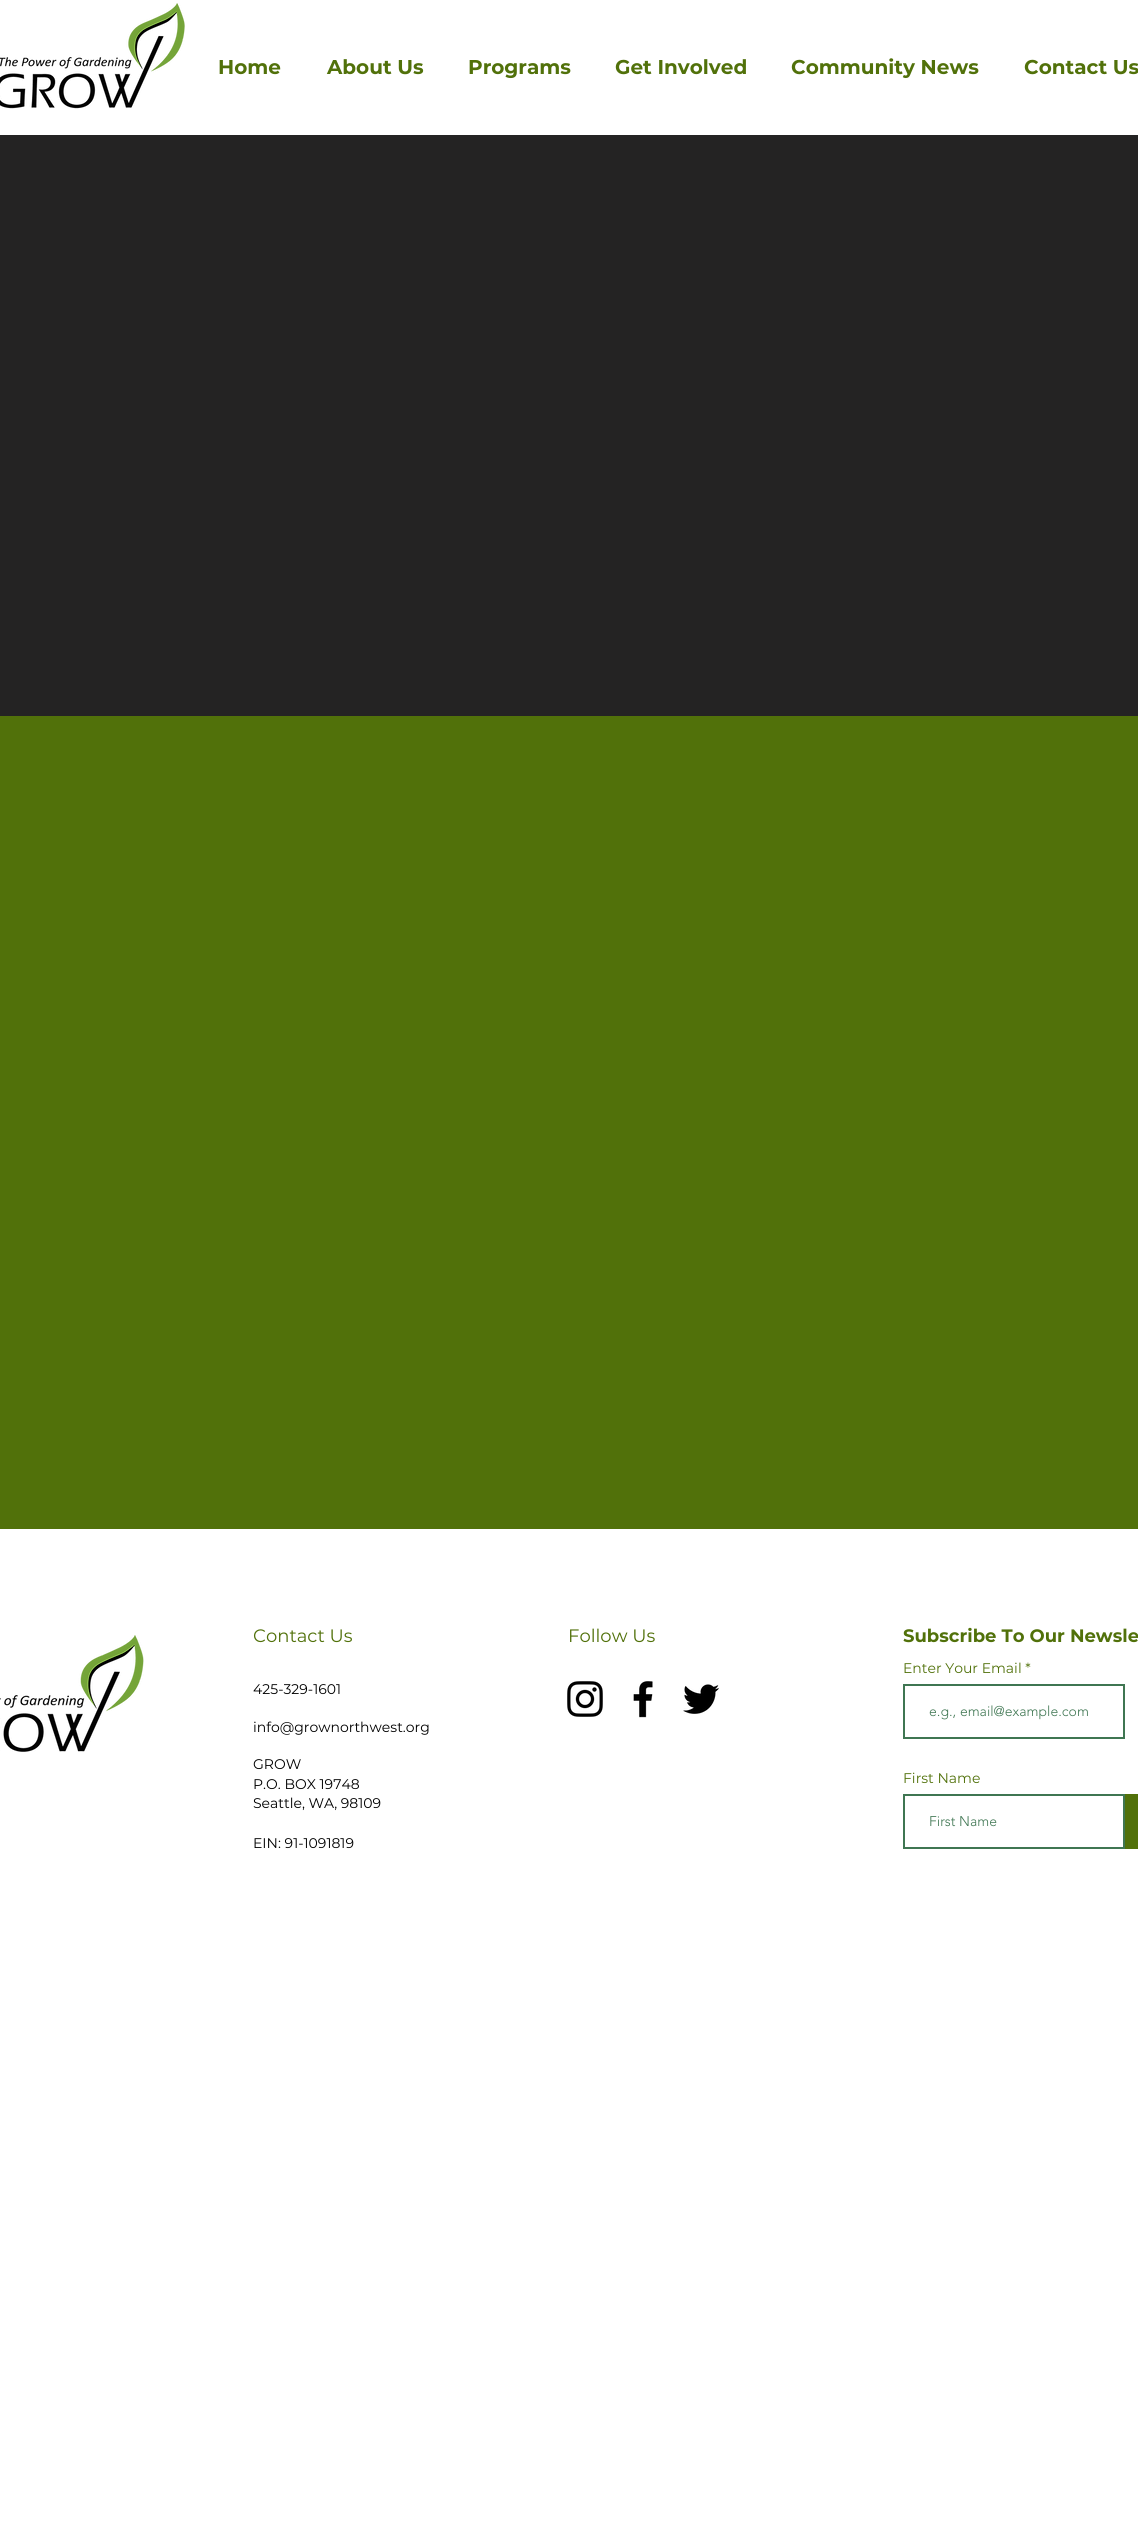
#include <cairo.h>
#include <math.h>
#include <stddef.h>

typedef struct { double x, y; const char *s; } line_t;

static void ink(cairo_t *ctx, unsigned color) {
    cairo_set_source_rgb(ctx, (color >> 16) / 255.0, (color >> 8 & 255) / 255.0, (color & 255) / 255.0);
}

static void paste(cairo_t *ctx, const char *path, double x, double y, double w, double h) {
    cairo_surface_t *image = cairo_image_surface_create_from_png(path);
    cairo_save(ctx);
    cairo_set_source_surface(ctx, image, x, y);
    cairo_rectangle(ctx, x, y, w, h);
    cairo_fill(ctx);
    cairo_restore(ctx);
    cairo_surface_destroy(image);
}

int main(void) {
    cairo_surface_t *surface = cairo_image_surface_create(CAIRO_FORMAT_RGB24, 1138, 2530);
    cairo_t *ctx = cairo_create(surface);
    cairo_font_options_t *options = cairo_font_options_create();
    cairo_font_options_set_hint_metrics(options, CAIRO_HINT_METRICS_OFF);
    cairo_font_options_set_hint_style(options, CAIRO_HINT_STYLE_NONE);
    cairo_set_font_options(ctx, options);
    cairo_set_miter_limit(ctx, 4);
    ink(ctx, 0xFFFFFF);
    cairo_paint(ctx);
    paste(ctx, "media/1.png", 0, 3, 185, 106);
    cairo_select_font_face(ctx, "Montserrat", CAIRO_FONT_SLANT_NORMAL, CAIRO_FONT_WEIGHT_BOLD);
    cairo_set_font_size(ctx, 20);
    ink(ctx, 0x51710A);
    {
        static const line_t items[] = {
            {218, 74, "Home"},
            {327, 74, "About Us"},
            {468, 74, "Programs"},
            {615, 74, "Get Involved"},
            {791, 74, "Community News"},
            {1024, 74, "Contact Us"},
        };
        for (size_t i = 0; i < sizeof items / sizeof *items; i++) {
            cairo_move_to(ctx, items[i].x, items[i].y);
            cairo_show_text(ctx, items[i].s);
        }
    }
    ink(ctx, 0x242323);
    cairo_rectangle(ctx, 0, 135, 1138, 581);
    cairo_fill(ctx);
    ink(ctx, 0x51710A);
    cairo_rectangle(ctx, 0, 716, 1138, 813);
    cairo_fill(ctx);
    paste(ctx, "media/2.png", 0, 1635, 144, 117);
    cairo_select_font_face(ctx, "Montserrat", CAIRO_FONT_SLANT_NORMAL, CAIRO_FONT_WEIGHT_NORMAL);
    cairo_set_font_size(ctx, 18);
    cairo_move_to(ctx, 253, 1642);
    cairo_show_text(ctx, "Contact Us");
    cairo_set_font_size(ctx, 14);
    ink(ctx, 0x000000);
    {
        static const line_t items[] = {
            {253, 1694, "425-329-1601"},
            {253, 1732, "info@grownorthwest.org"},
            {253, 1769, "GROW"},
            {253, 1789, "P.O. BOX 19748"},
            {253, 1808, "Seattle, WA, 98109"},
            {253, 1848, "EIN: 91-1091819"},
        };
        for (size_t i = 0; i < sizeof items / sizeof *items; i++) {
            cairo_move_to(ctx, items[i].x, items[i].y);
            cairo_show_text(ctx, items[i].s);
        }
    }
    cairo_set_font_size(ctx, 18);
    ink(ctx, 0x51710A);
    cairo_move_to(ctx, 568, 1642);
    cairo_show_text(ctx, "Follow Us");
    paste(ctx, "media/3.png", 567, 1681, 36, 36);
    paste(ctx, "media/4.png", 633, 1681, 20, 37);
    paste(ctx, "media/5.png", 683, 1684, 37, 30);
    cairo_select_font_face(ctx, "Montserrat", CAIRO_FONT_SLANT_NORMAL, CAIRO_FONT_WEIGHT_BOLD);
    cairo_move_to(ctx, 903, 1642);
    cairo_show_text(ctx, "Subscribe To Our Newsle");
    cairo_select_font_face(ctx, "Montserrat", CAIRO_FONT_SLANT_NORMAL, CAIRO_FONT_WEIGHT_NORMAL);
    cairo_set_font_size(ctx, 14);
    cairo_move_to(ctx, 903, 1673);
    cairo_show_text(ctx, "Enter Your Email *");
    cairo_rectangle(ctx, 904, 1685, 220, 53);
    ink(ctx, 0x3F7652);
    cairo_stroke(ctx);
    cairo_select_font_face(ctx, "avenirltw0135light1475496 Light", CAIRO_FONT_SLANT_NORMAL, CAIRO_FONT_WEIGHT_NORMAL);
    cairo_move_to(ctx, 929, 1716);
    cairo_show_text(ctx, "e.g., email@example.com");
    cairo_select_font_face(ctx, "Montserrat", CAIRO_FONT_SLANT_NORMAL, CAIRO_FONT_WEIGHT_NORMAL);
    ink(ctx, 0x51710A);
    cairo_move_to(ctx, 903, 1783);
    cairo_show_text(ctx, "First Name");
    cairo_rectangle(ctx, 904, 1795, 220, 53);
    ink(ctx, 0x3F7652);
    cairo_stroke(ctx);
    cairo_select_font_face(ctx, "avenirltw0135light1475496 Light", CAIRO_FONT_SLANT_NORMAL, CAIRO_FONT_WEIGHT_NORMAL);
    cairo_move_to(ctx, 929, 1826);
    cairo_show_text(ctx, "First Name");
    ink(ctx, 0x51710A);
    cairo_rectangle(ctx, 1125, 1794, 13, 55);
    cairo_fill(ctx);
    cairo_surface_write_to_png(surface, "image.png");
    cairo_font_options_destroy(options);
    cairo_destroy(ctx);
    cairo_surface_destroy(surface);
    return 0;
}
